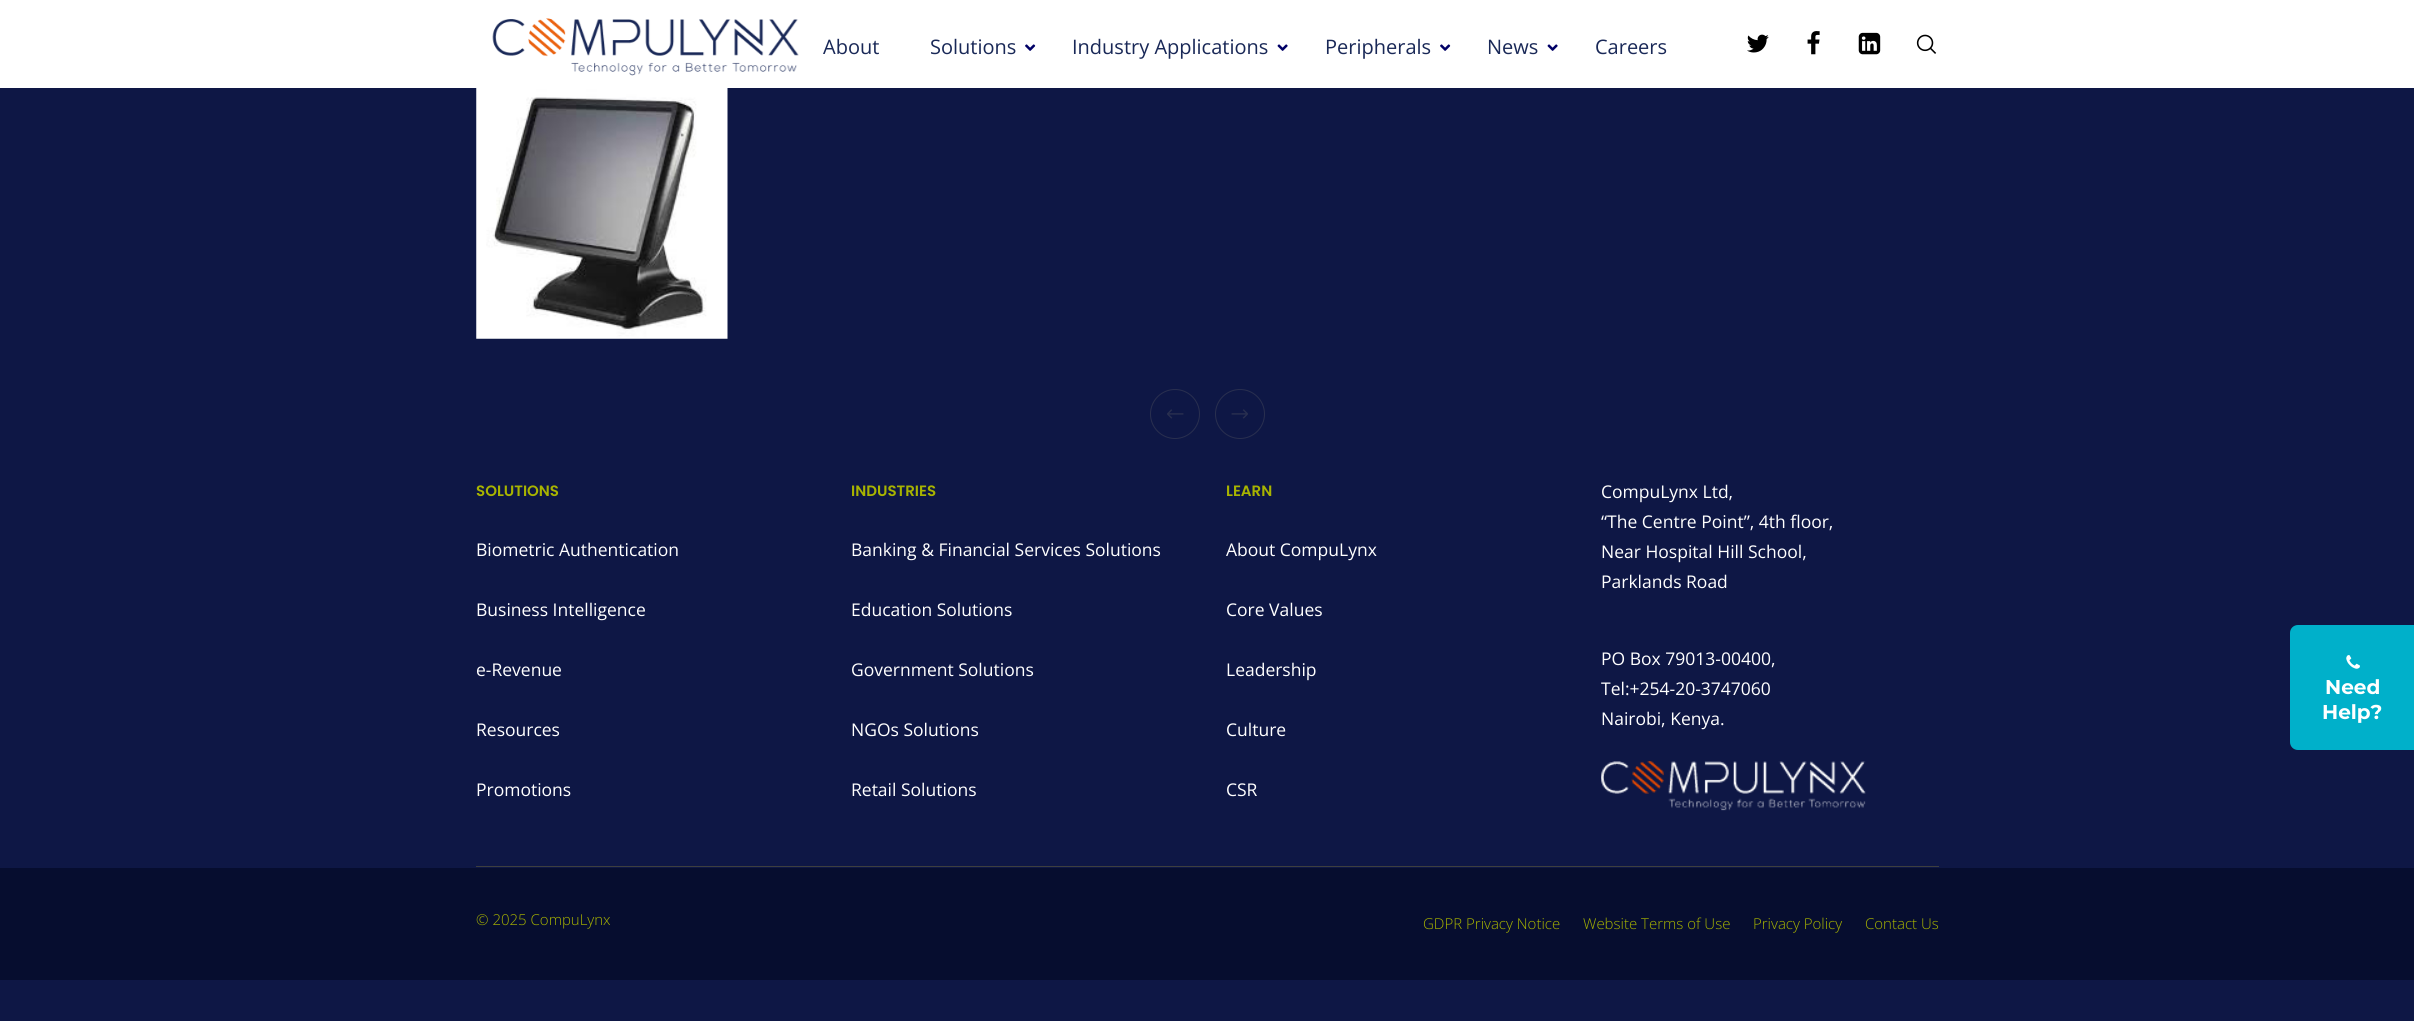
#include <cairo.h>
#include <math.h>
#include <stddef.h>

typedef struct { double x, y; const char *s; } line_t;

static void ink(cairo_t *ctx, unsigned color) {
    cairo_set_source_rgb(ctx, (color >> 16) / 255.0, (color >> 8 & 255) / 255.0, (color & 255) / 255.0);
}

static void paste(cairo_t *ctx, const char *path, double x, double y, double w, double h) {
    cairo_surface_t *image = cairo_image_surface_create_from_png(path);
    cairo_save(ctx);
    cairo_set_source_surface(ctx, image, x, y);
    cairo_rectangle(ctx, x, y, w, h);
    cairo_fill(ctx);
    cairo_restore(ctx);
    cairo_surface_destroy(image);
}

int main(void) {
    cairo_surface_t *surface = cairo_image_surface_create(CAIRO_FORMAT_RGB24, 2414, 1021);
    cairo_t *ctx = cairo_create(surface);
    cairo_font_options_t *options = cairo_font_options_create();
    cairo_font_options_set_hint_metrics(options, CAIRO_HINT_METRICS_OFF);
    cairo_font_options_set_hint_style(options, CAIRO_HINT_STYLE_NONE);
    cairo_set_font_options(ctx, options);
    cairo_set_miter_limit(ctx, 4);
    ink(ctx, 0x0E1745);
    cairo_paint(ctx);
    ink(ctx, 0xFFFFFF);
    cairo_rectangle(ctx, 0, 0, 2414, 88);
    cairo_fill(ctx);
    paste(ctx, "media/1.png", 492, 18, 307, 58);
    cairo_select_font_face(ctx, "Open Sans", CAIRO_FONT_SLANT_NORMAL, CAIRO_FONT_WEIGHT_NORMAL);
    cairo_set_font_size(ctx, 20);
    ink(ctx, 0x192857);
    cairo_move_to(ctx, 823, 54);
    cairo_show_text(ctx, "About");
    cairo_move_to(ctx, 930, 54);
    cairo_show_text(ctx, "Solutions");
    paste(ctx, "media/2.png", 1025, 44, 11, 7);
    cairo_move_to(ctx, 1072, 54);
    cairo_show_text(ctx, "Industry Applications");
    paste(ctx, "media/3.png", 1277, 44, 11, 7);
    cairo_move_to(ctx, 1325, 54);
    cairo_show_text(ctx, "Peripherals");
    paste(ctx, "media/2.png", 1440, 44, 11, 7);
    cairo_move_to(ctx, 1487, 54);
    cairo_show_text(ctx, "News");
    paste(ctx, "media/3.png", 1547, 44, 11, 7);
    cairo_move_to(ctx, 1595, 54);
    cairo_show_text(ctx, "Careers");
    paste(ctx, "media/4.png", 1747, 34, 22, 19);
    paste(ctx, "media/5.png", 1807, 31, 13, 24);
    paste(ctx, "media/6.png", 1858, 32, 23, 23);
    paste(ctx, "media/7.png", 1916, 34, 21, 20);
    paste(ctx, "media/8.png", 476, 88, 252, 251);
    cairo_arc(ctx, 1175, 414, 24.5, 0, 2 * M_PI);
    ink(ctx, 0x292F4F);
    cairo_set_line_width(ctx, 1);
    cairo_stroke(ctx);
    paste(ctx, "media/9.png", 1167, 409, 17, 10);
    cairo_arc(ctx, 1240, 414, 24.5, 0, 2 * M_PI);
    cairo_stroke(ctx);
    paste(ctx, "media/10.png", 1231, 409, 17, 10);
    ink(ctx, 0x3E3F3F);
    cairo_rectangle(ctx, 476, 866, 1463, 1);
    cairo_fill(ctx);
    cairo_select_font_face(ctx, "Poppins SemiBold", CAIRO_FONT_SLANT_NORMAL, CAIRO_FONT_WEIGHT_NORMAL);
    cairo_set_font_size(ctx, 15);
    ink(ctx, 0xA8B400);
    cairo_move_to(ctx, 476, 496);
    cairo_show_text(ctx, "SOLUTIONS");
    cairo_select_font_face(ctx, "Open Sans", CAIRO_FONT_SLANT_NORMAL, CAIRO_FONT_WEIGHT_NORMAL);
    cairo_set_font_size(ctx, 17.5);
    ink(ctx, 0xFFFFFF);
    {
        static const line_t items[] = {
            {476, 556, "Biometric Authentication"},
            {476, 616, "Business Intelligence"},
            {476, 676, "e-Revenue"},
            {476, 736, "Resources"},
            {476, 796, "Promotions"},
        };
        for (size_t i = 0; i < sizeof items / sizeof *items; i++) {
            cairo_move_to(ctx, items[i].x, items[i].y);
            cairo_show_text(ctx, items[i].s);
        }
    }
    cairo_select_font_face(ctx, "Poppins SemiBold", CAIRO_FONT_SLANT_NORMAL, CAIRO_FONT_WEIGHT_NORMAL);
    cairo_set_font_size(ctx, 15);
    ink(ctx, 0xA8B400);
    cairo_move_to(ctx, 851, 496);
    cairo_show_text(ctx, "INDUSTRIES");
    cairo_select_font_face(ctx, "Open Sans", CAIRO_FONT_SLANT_NORMAL, CAIRO_FONT_WEIGHT_NORMAL);
    cairo_set_font_size(ctx, 17.5);
    ink(ctx, 0xFFFFFF);
    {
        static const line_t items[] = {
            {851, 556, "Banking & Financial Services Solutions"},
            {851, 616, "Education Solutions"},
            {851, 676, "Government Solutions"},
            {851, 736, "NGOs Solutions"},
            {851, 796, "Retail Solutions"},
        };
        for (size_t i = 0; i < sizeof items / sizeof *items; i++) {
            cairo_move_to(ctx, items[i].x, items[i].y);
            cairo_show_text(ctx, items[i].s);
        }
    }
    cairo_select_font_face(ctx, "Poppins SemiBold", CAIRO_FONT_SLANT_NORMAL, CAIRO_FONT_WEIGHT_NORMAL);
    cairo_set_font_size(ctx, 15);
    ink(ctx, 0xA8B400);
    cairo_move_to(ctx, 1226, 496);
    cairo_show_text(ctx, "LEARN");
    cairo_select_font_face(ctx, "Open Sans", CAIRO_FONT_SLANT_NORMAL, CAIRO_FONT_WEIGHT_NORMAL);
    cairo_set_font_size(ctx, 17.5);
    ink(ctx, 0xFFFFFF);
    {
        static const line_t items[] = {
            {1226, 556, "About CompuLynx"},
            {1226, 616, "Core Values"},
            {1226, 676, "Leadership"},
            {1226, 736, "Culture"},
            {1226, 796, "CSR"},
            {1601, 498, "CompuLynx Ltd,"},
            {1601, 528, "“The Centre Point”, 4th floor,"},
            {1601, 558, "Near Hospital Hill School,"},
            {1601, 588, "Parklands Road"},
            {1601, 665, "PO Box 79013-00400,"},
            {1601, 695, "Tel:+254-20-3747060"},
            {1601, 725, "Nairobi, Kenya."},
        };
        for (size_t i = 0; i < sizeof items / sizeof *items; i++) {
            cairo_move_to(ctx, items[i].x, items[i].y);
            cairo_show_text(ctx, items[i].s);
        }
    }
    paste(ctx, "media/11.png", 1601, 761, 265, 50);
    ink(ctx, 0x060D2F);
    cairo_rectangle(ctx, 0, 868, 2414, 112);
    cairo_fill(ctx);
    cairo_select_font_face(ctx, "Open Sans Light", CAIRO_FONT_SLANT_NORMAL, CAIRO_FONT_WEIGHT_NORMAL);
    cairo_set_font_size(ctx, 15);
    ink(ctx, 0xA8B400);
    {
        static const line_t items[] = {
            {476, 925, "© 2025 CompuLynx"},
            {1423, 929, "GDPR Privacy Notice"},
            {1583, 929, "Website Terms of Use"},
            {1753, 929, "Privacy Policy"},
            {1865, 929, "Contact Us"},
        };
        for (size_t i = 0; i < sizeof items / sizeof *items; i++) {
            cairo_move_to(ctx, items[i].x, items[i].y);
            cairo_show_text(ctx, items[i].s);
        }
    }
    ink(ctx, 0x00B0CA);
    cairo_new_path(ctx);
    cairo_move_to(ctx, 2298, 625);
    cairo_line_to(ctx, 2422, 625);
    cairo_line_to(ctx, 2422, 750);
    cairo_line_to(ctx, 2298, 750);
    cairo_curve_to(ctx, 2293.5, 750, 2290, 746.5, 2290, 742);
    cairo_line_to(ctx, 2290, 633);
    cairo_curve_to(ctx, 2290, 628.5, 2293.5, 625, 2298, 625);
    cairo_close_path(ctx);
    cairo_fill(ctx);
    paste(ctx, "media/12.png", 2346, 655, 14, 14);
    cairo_select_font_face(ctx, "Montserrat", CAIRO_FONT_SLANT_NORMAL, CAIRO_FONT_WEIGHT_BOLD);
    cairo_set_font_size(ctx, 20);
    ink(ctx, 0xFFFFFF);
    cairo_move_to(ctx, 2325, 694);
    cairo_show_text(ctx, "Need");
    cairo_move_to(ctx, 2322, 719);
    cairo_show_text(ctx, "Help?");
    cairo_surface_write_to_png(surface, "image.png");
    cairo_font_options_destroy(options);
    cairo_destroy(ctx);
    cairo_surface_destroy(surface);
    return 0;
}
